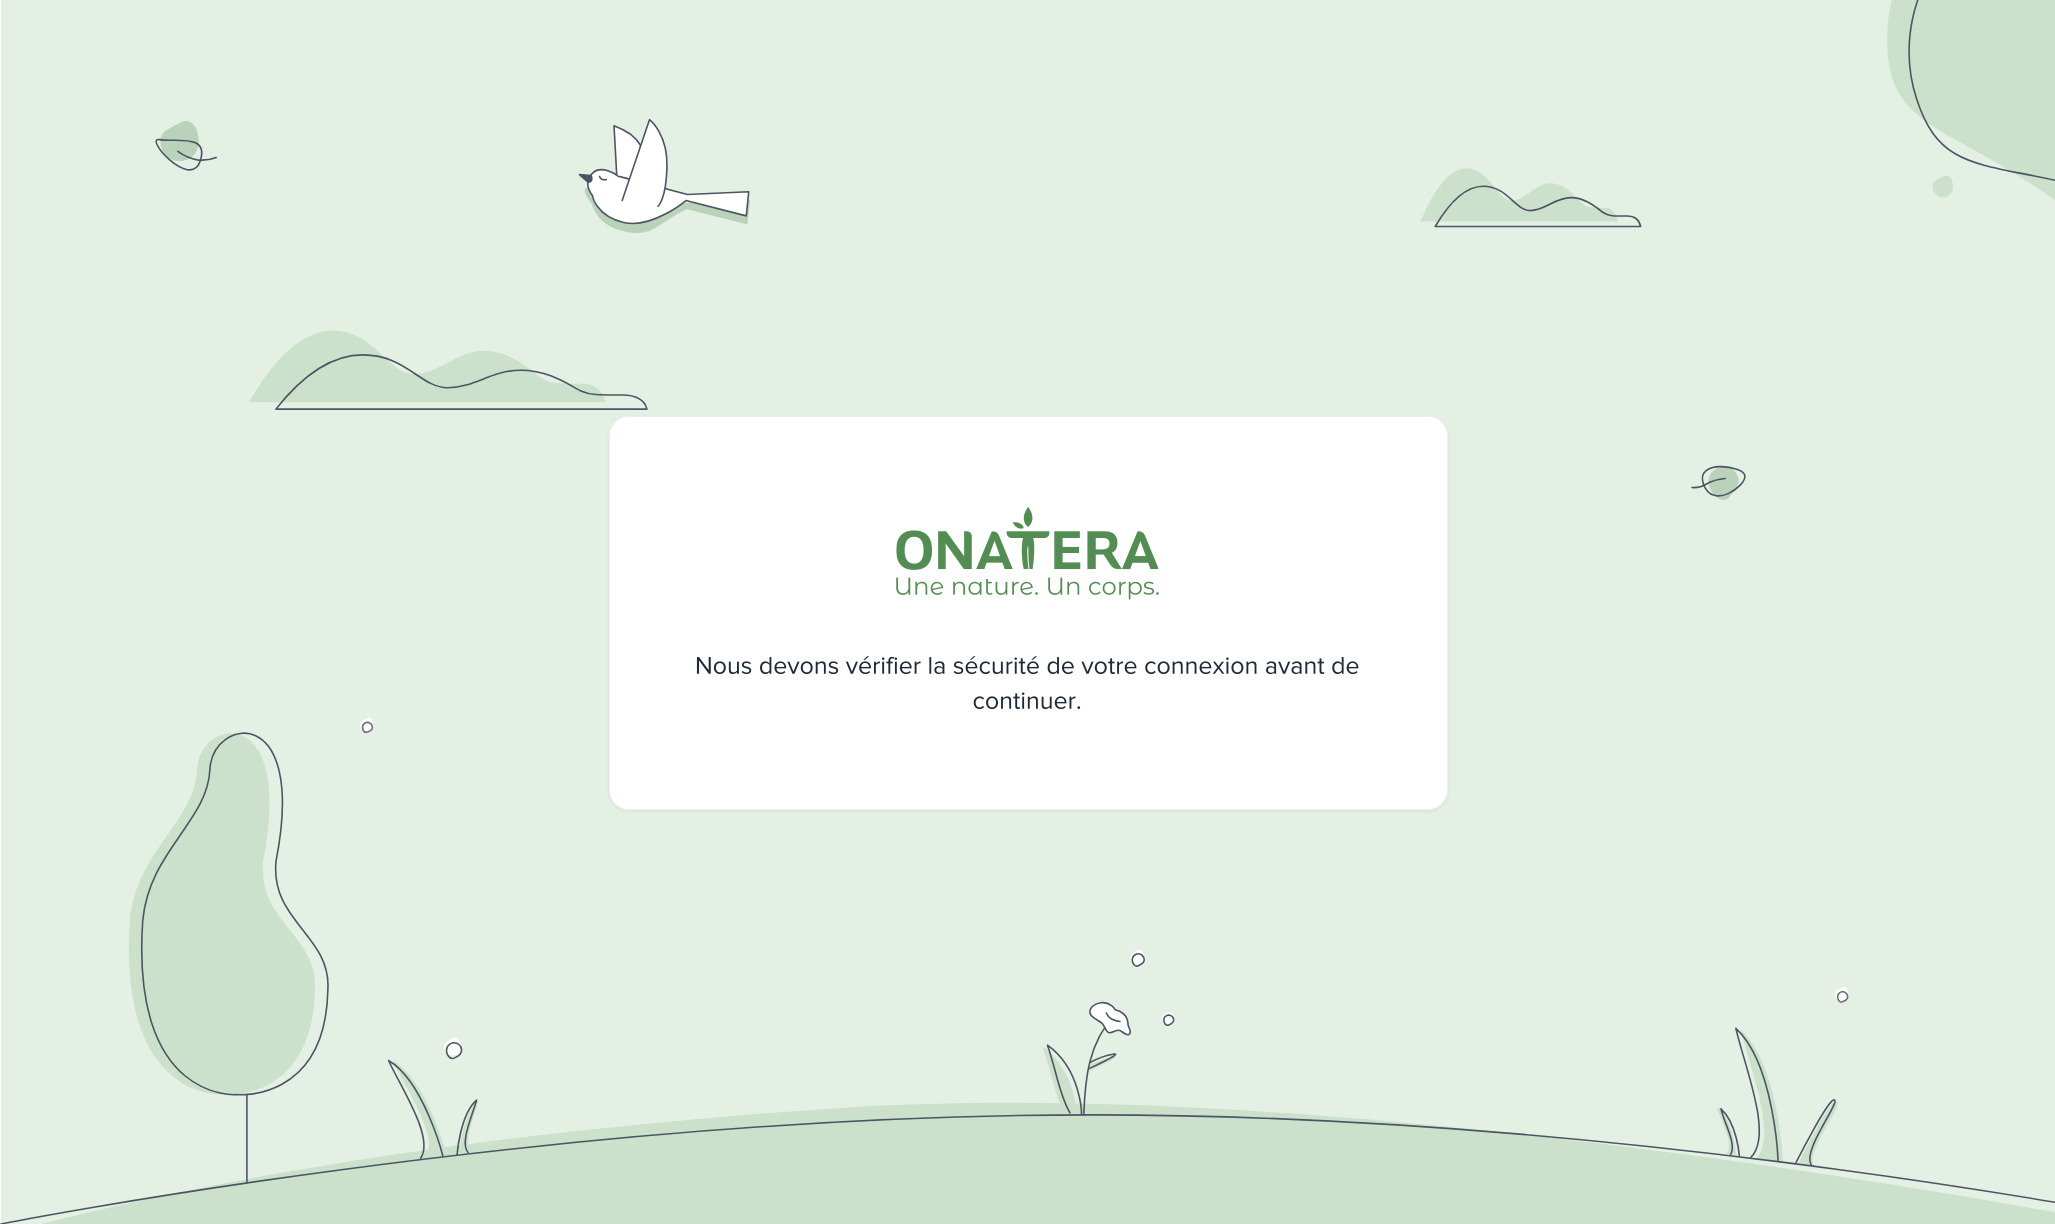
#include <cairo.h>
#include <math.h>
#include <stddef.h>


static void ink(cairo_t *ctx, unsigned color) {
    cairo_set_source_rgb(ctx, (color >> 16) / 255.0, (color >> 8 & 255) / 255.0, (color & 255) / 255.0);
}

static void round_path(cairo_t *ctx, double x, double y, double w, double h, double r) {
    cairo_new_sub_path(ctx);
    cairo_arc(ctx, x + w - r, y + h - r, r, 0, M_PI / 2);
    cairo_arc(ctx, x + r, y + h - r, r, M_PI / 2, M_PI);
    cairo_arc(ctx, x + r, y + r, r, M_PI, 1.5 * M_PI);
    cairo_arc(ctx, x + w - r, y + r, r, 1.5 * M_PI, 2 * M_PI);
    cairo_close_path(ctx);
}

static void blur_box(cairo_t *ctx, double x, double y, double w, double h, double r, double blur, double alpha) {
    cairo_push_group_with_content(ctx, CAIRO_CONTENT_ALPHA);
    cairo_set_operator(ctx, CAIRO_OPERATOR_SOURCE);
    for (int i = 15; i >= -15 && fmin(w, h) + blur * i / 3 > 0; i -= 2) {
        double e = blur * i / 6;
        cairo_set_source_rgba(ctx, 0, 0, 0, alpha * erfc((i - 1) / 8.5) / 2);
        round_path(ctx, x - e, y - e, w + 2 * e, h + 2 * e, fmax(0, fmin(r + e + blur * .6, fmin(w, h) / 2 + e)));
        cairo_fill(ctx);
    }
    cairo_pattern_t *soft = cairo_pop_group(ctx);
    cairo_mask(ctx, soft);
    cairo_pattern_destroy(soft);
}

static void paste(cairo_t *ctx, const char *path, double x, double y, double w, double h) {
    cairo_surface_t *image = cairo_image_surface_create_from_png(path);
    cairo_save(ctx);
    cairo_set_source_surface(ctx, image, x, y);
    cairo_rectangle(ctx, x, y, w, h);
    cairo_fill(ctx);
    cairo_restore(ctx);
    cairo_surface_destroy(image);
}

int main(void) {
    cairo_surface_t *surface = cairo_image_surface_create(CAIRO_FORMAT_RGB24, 2055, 1224);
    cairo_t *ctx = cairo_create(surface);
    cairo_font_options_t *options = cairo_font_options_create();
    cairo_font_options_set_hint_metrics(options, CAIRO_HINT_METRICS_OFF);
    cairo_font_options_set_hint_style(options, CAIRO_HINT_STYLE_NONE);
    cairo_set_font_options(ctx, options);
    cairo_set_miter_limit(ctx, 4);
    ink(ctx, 0xFFFFFF);
    cairo_paint(ctx);
    paste(ctx, "media/1.png", 0, 0, 2055, 1224);
    ink(ctx, 0x000000);
    blur_box(ctx, 609, 418, 839, 393, 20, 2, 0.08);
    ink(ctx, 0xFFFFFF);
    round_path(ctx, 609.5, 416.5, 838, 393, 19.5);
    cairo_fill_preserve(ctx);
    ink(ctx, 0xF0F0F0);
    cairo_set_line_width(ctx, 1);
    cairo_stroke(ctx);
    paste(ctx, "media/2.png", 896, 507, 263, 93);
    paste(ctx, "media/3.png", 696, 656, 663, 19);
    paste(ctx, "media/4.png", 973, 692, 108, 18);
    cairo_surface_write_to_png(surface, "image.png");
    cairo_font_options_destroy(options);
    cairo_destroy(ctx);
    cairo_surface_destroy(surface);
    return 0;
}
